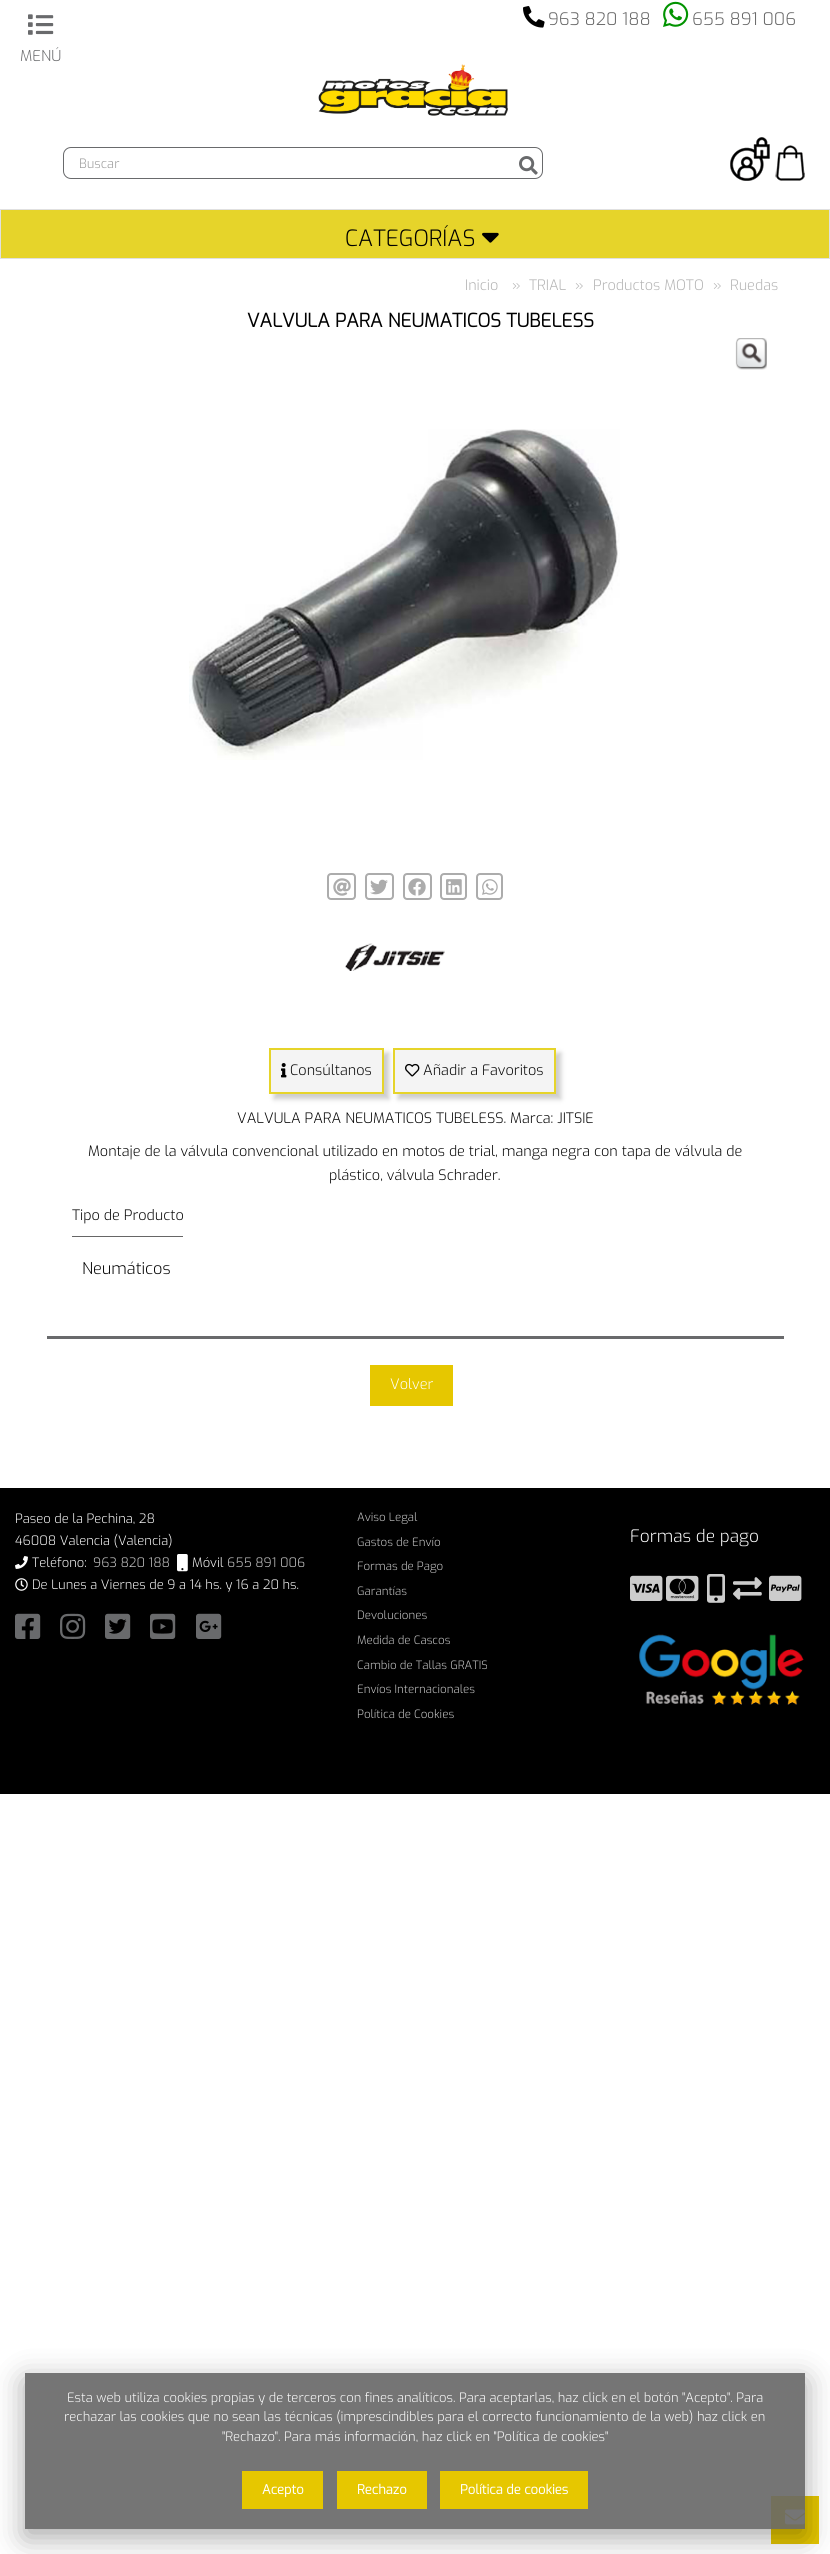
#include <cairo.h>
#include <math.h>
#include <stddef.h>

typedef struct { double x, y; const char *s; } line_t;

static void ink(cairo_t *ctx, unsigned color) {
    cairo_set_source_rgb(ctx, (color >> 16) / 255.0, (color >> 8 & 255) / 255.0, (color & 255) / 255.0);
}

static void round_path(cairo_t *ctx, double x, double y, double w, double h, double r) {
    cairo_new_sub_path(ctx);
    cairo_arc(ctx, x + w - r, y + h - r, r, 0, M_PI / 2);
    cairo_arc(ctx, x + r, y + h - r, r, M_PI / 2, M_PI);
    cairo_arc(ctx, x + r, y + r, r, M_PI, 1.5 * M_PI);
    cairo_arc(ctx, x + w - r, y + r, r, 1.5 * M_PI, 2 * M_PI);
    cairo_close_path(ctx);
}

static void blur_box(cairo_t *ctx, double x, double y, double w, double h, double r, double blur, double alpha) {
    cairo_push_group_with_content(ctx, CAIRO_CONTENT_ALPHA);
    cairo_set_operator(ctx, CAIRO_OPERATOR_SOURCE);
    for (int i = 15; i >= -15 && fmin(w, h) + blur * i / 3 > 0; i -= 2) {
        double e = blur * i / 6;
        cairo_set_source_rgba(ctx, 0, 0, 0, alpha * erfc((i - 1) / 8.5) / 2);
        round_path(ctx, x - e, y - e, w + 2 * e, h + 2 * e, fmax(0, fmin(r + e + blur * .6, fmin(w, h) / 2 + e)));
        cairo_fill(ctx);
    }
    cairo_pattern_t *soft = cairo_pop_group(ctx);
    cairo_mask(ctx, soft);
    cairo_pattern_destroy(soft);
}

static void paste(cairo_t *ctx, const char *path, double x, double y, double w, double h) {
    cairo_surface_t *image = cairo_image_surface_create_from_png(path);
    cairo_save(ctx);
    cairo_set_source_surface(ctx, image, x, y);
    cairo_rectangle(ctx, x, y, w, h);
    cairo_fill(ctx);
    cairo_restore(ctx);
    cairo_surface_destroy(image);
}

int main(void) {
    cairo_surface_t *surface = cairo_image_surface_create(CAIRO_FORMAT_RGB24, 830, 2554);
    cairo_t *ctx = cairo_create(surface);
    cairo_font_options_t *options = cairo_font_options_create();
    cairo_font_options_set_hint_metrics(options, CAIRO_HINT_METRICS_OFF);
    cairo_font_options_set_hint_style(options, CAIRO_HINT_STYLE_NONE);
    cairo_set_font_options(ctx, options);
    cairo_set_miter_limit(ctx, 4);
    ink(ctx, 0xFFFFFF);
    cairo_paint(ctx);
    ink(ctx, 0x757575);
    cairo_rectangle(ctx, 25, 2373, 780, 156);
    cairo_fill(ctx);
    paste(ctx, "media/1.png", 523, 6, 22, 22);
    cairo_select_font_face(ctx, "Exo Light", CAIRO_FONT_SLANT_NORMAL, CAIRO_FONT_WEIGHT_NORMAL);
    cairo_set_font_size(ctx, 17.25);
    ink(ctx, 0x666666);
    cairo_move_to(ctx, 548, 25);
    cairo_show_text(ctx, "963 820 188");
    paste(ctx, "media/2.png", 663, 1, 26, 26);
    cairo_move_to(ctx, 692, 25);
    cairo_show_text(ctx, "655 891 006");
    paste(ctx, "media/3.png", 28, 14, 26, 21);
    cairo_set_font_size(ctx, 15);
    ink(ctx, 0x696A6C);
    cairo_move_to(ctx, 20, 61);
    cairo_show_text(ctx, "MENÚ");
    paste(ctx, "media/4.png", 318, 64, 190, 52);
    round_path(ctx, 63.5, 147.5, 479, 31, 7.5);
    cairo_set_line_width(ctx, 1);
    cairo_stroke(ctx);
    cairo_set_font_size(ctx, 12.95);
    ink(ctx, 0x999999);
    cairo_move_to(ctx, 79, 168);
    cairo_show_text(ctx, "Buscar");
    paste(ctx, "media/5.png", 519, 156, 19, 19);
    paste(ctx, "media/6.png", 730, 137, 40, 44);
    paste(ctx, "media/7.png", 775, 145, 30, 36);
    ink(ctx, 0xE6D42A);
    cairo_rectangle(ctx, 0.5, 209.5, 829, 49);
    cairo_fill_preserve(ctx);
    ink(ctx, 0xE0E0E0);
    cairo_stroke(ctx);
    cairo_set_font_size(ctx, 22.5);
    ink(ctx, 0x000000);
    cairo_move_to(ctx, 345, 246);
    cairo_show_text(ctx, "CATEGORÍAS");
    paste(ctx, "media/8.png", 482, 232, 17, 11);
    cairo_set_font_size(ctx, 14.4);
    ink(ctx, 0xB2B2B2);
    {
        static const line_t items[] = {
            {465, 290, "Inicio"},
            {512, 290, "»"},
            {529, 290, "TRIAL"},
            {575, 290, "»"},
            {593, 290, "Productos MOTO"},
            {713, 290, "»"},
            {730, 290, "Ruedas"},
        };
        for (size_t i = 0; i < sizeof items / sizeof *items; i++) {
            cairo_move_to(ctx, items[i].x, items[i].y);
            cairo_show_text(ctx, items[i].s);
        }
    }
    cairo_select_font_face(ctx, "Exo", CAIRO_FONT_SLANT_NORMAL, CAIRO_FONT_WEIGHT_BOLD);
    cairo_set_font_size(ctx, 18.75);
    ink(ctx, 0x000000);
    cairo_move_to(ctx, 247, 327);
    cairo_show_text(ctx, "VALVULA PARA NEUMATICOS TUBELESS");
    paste(ctx, "media/9.png", 735, 338, 32, 32);
    paste(ctx, "media/10.png", 189, 429, 431, 331);
    round_path(ctx, 328, 874, 27, 25, 3);
    ink(ctx, 0xACACAC);
    cairo_set_line_width(ctx, 2);
    cairo_stroke(ctx);
    paste(ctx, "media/11.png", 333, 878, 18, 18);
    round_path(ctx, 366, 874, 27, 25, 3);
    cairo_stroke(ctx);
    paste(ctx, "media/12.png", 370, 879, 18, 16);
    round_path(ctx, 404, 874, 27, 25, 3);
    cairo_stroke(ctx);
    paste(ctx, "media/13.png", 408, 878, 18, 18);
    round_path(ctx, 441, 874, 25, 25, 3);
    cairo_stroke(ctx);
    paste(ctx, "media/14.png", 446, 879, 16, 16);
    round_path(ctx, 477, 874, 25, 25, 3);
    cairo_stroke(ctx);
    paste(ctx, "media/15.png", 482, 879, 16, 16);
    paste(ctx, "media/16.png", 345, 943, 100, 28);
    ink(ctx, 0xCCCCCC);
    blur_box(ctx, 274, 1053, 115, 46, 0, 2.5, 1);
    ink(ctx, 0xF4F4F4);
    cairo_rectangle(ctx, 270, 1049, 113, 44);
    cairo_fill_preserve(ctx);
    ink(ctx, 0xE6D42A);
    cairo_stroke(ctx);
    paste(ctx, "media/17.png", 281, 1063, 6, 15);
    cairo_select_font_face(ctx, "Exo Light", CAIRO_FONT_SLANT_NORMAL, CAIRO_FONT_WEIGHT_NORMAL);
    cairo_set_font_size(ctx, 14.4);
    ink(ctx, 0x000000);
    cairo_move_to(ctx, 290, 1075);
    cairo_show_text(ctx, "Consúltanos");
    ink(ctx, 0xCCCCCC);
    blur_box(ctx, 398, 1053, 163, 46, 0, 2.5, 1);
    ink(ctx, 0xF4F4F4);
    cairo_rectangle(ctx, 394, 1049, 161, 44);
    cairo_fill_preserve(ctx);
    ink(ctx, 0xE6D42A);
    cairo_stroke(ctx);
    paste(ctx, "media/18.png", 405, 1063, 15, 14);
    ink(ctx, 0x000000);
    {
        static const line_t items[] = {
            {423, 1075, "Añadir a Favoritos"},
            {237, 1123, "VALVULA PARA NEUMATICOS TUBELESS. Marca: JITSIE"},
            {88, 1156, "Montaje de la válvula convencional utilizado en motos de trial, manga negra con tapa de válvula de"},
            {329, 1180, "plástico, válvula Schrader."},
        };
        for (size_t i = 0; i < sizeof items / sizeof *items; i++) {
            cairo_move_to(ctx, items[i].x, items[i].y);
            cairo_show_text(ctx, items[i].s);
        }
    }
    ink(ctx, 0x666666);
    cairo_rectangle(ctx, 72, 1236, 111, 1);
    cairo_fill(ctx);
    ink(ctx, 0x000000);
    cairo_move_to(ctx, 72, 1220);
    cairo_show_text(ctx, "Tipo de Producto");
    cairo_set_font_size(ctx, 16.25);
    cairo_move_to(ctx, 82, 1274);
    cairo_show_text(ctx, "Neumáticos");
    ink(ctx, 0x696A6C);
    cairo_rectangle(ctx, 47, 1336, 737, 3);
    cairo_fill(ctx);
    ink(ctx, 0xE6C700);
    cairo_rectangle(ctx, 370, 1365, 83, 41);
    cairo_fill(ctx);
    cairo_set_font_size(ctx, 14.4);
    ink(ctx, 0xFFFFFF);
    cairo_move_to(ctx, 390, 1389);
    cairo_show_text(ctx, "Volver");
    ink(ctx, 0x000000);
    cairo_rectangle(ctx, 0, 1488, 830, 306);
    cairo_fill(ctx);
    cairo_set_font_size(ctx, 12.95);
    ink(ctx, 0xFFFFFF);
    cairo_move_to(ctx, 15, 1523);
    cairo_show_text(ctx, "Paseo de la Pechina, 28");
    cairo_move_to(ctx, 15, 1545);
    cairo_show_text(ctx, "46008 Valencia (Valencia)");
    paste(ctx, "media/19.png", 15, 1556, 13, 13);
    cairo_move_to(ctx, 32, 1567);
    cairo_show_text(ctx, "Teléfono:");
    ink(ctx, 0xCCCCCC);
    cairo_move_to(ctx, 93, 1567);
    cairo_show_text(ctx, "963 820 188");
    paste(ctx, "media/20.png", 177, 1554, 11, 18);
    ink(ctx, 0xFFFFFF);
    cairo_move_to(ctx, 192, 1567);
    cairo_show_text(ctx, "Móvil");
    ink(ctx, 0xCCCCCC);
    cairo_move_to(ctx, 227, 1567);
    cairo_show_text(ctx, "655 891 006");
    paste(ctx, "media/21.png", 15, 1578, 13, 13);
    ink(ctx, 0xFFFFFF);
    cairo_move_to(ctx, 32, 1589);
    cairo_show_text(ctx, "De Lunes a Viernes de 9 a 14 hs. y 16 a 20 hs.");
    paste(ctx, "media/22.png", 15, 1613, 26, 26);
    paste(ctx, "media/23.png", 60, 1613, 26, 26);
    paste(ctx, "media/24.png", 105, 1613, 26, 26);
    paste(ctx, "media/25.png", 150, 1613, 26, 26);
    paste(ctx, "media/26.png", 196, 1613, 26, 26);
    cairo_set_font_size(ctx, 11.5);
    ink(ctx, 0xCCCCCC);
    {
        static const line_t items[] = {
            {357, 1521, "Aviso Legal"},
            {357, 1546, "Gastos de Envío"},
            {357, 1570, "Formas de Pago"},
            {357, 1595, "Garantías"},
            {357, 1619, "Devoluciones"},
            {357, 1644, "Medida de Cascos"},
            {357, 1669, "Cambio de Tallas GRATIS"},
            {357, 1693, "Envíos Internacionales"},
            {357, 1718, "Política de Cookies"},
        };
        for (size_t i = 0; i < sizeof items / sizeof *items; i++) {
            cairo_move_to(ctx, items[i].x, items[i].y);
            cairo_show_text(ctx, items[i].s);
        }
    }
    cairo_set_font_size(ctx, 17.25);
    ink(ctx, 0xFFFFFF);
    cairo_move_to(ctx, 630, 1542);
    cairo_show_text(ctx, "Formas de pago");
    paste(ctx, "media/27.png", 630, 1575, 33, 26);
    paste(ctx, "media/28.png", 666, 1575, 33, 27);
    paste(ctx, "media/29.png", 707, 1574, 18, 29);
    paste(ctx, "media/30.png", 733, 1577, 29, 23);
    paste(ctx, "media/31.png", 769, 1575, 33, 26);
    paste(ctx, "media/32.png", 639, 1634, 165, 71);
    ink(ctx, 0xE6C700);
    cairo_rectangle(ctx, 771, 2496, 48, 48);
    cairo_fill(ctx);
    ink(ctx, 0x73705C);
    cairo_rectangle(ctx, 771, 2496, 34, 33);
    cairo_fill(ctx);
    paste(ctx, "media/33.png", 785, 2509, 20, 16);
    cairo_save(ctx);
    cairo_set_fill_rule(ctx, CAIRO_FILL_RULE_EVEN_ODD);
    cairo_new_path(ctx);
    cairo_move_to(ctx, 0, 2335);
    cairo_line_to(ctx, 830, 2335);
    cairo_line_to(ctx, 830, 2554);
    cairo_line_to(ctx, 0, 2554);
    cairo_close_path(ctx);
    cairo_move_to(ctx, 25, 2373);
    cairo_line_to(ctx, 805, 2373);
    cairo_line_to(ctx, 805, 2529);
    cairo_line_to(ctx, 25, 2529);
    cairo_close_path(ctx);
    cairo_clip(ctx);
    ink(ctx, 0x000000);
    blur_box(ctx, 25, 2381, 780, 156, 0, 15, 0.35);
    cairo_restore(ctx);
    cairo_set_font_size(ctx, 12.95);
    ink(ctx, 0xFFFFFF);
    {
        static const line_t items[] = {
            {67, 2402, "Esta web utiliza cookies propias y de terceros con fines analíticos. Para aceptarlas, haz click en el botón \"Acepto\". Para"},
            {64, 2421, "rechazar las cookies que no sean las técnicas (imprescindibles para el correcto funcionamiento de la web) haz click en"},
            {222, 2441, "\"Rechazo\". Para más información, haz click en \"Política de cookies\""},
        };
        for (size_t i = 0; i < sizeof items / sizeof *items; i++) {
            cairo_move_to(ctx, items[i].x, items[i].y);
            cairo_show_text(ctx, items[i].s);
        }
    }
    ink(ctx, 0xE6C700);
    cairo_rectangle(ctx, 242, 2471, 81, 38);
    cairo_fill(ctx);
    cairo_select_font_face(ctx, "Exo", CAIRO_FONT_SLANT_NORMAL, CAIRO_FONT_WEIGHT_BOLD);
    ink(ctx, 0xFFFFFF);
    cairo_move_to(ctx, 262, 2494);
    cairo_show_text(ctx, "Acepto");
    ink(ctx, 0xE6C700);
    cairo_rectangle(ctx, 337, 2471, 90, 38);
    cairo_fill(ctx);
    ink(ctx, 0xFFFFFF);
    cairo_move_to(ctx, 357, 2494);
    cairo_show_text(ctx, "Rechazo");
    ink(ctx, 0xE6C700);
    cairo_rectangle(ctx, 440, 2471, 148, 38);
    cairo_fill(ctx);
    ink(ctx, 0xFFFFFF);
    cairo_move_to(ctx, 460, 2494);
    cairo_show_text(ctx, "Política de cookies");
    cairo_surface_write_to_png(surface, "image.png");
    cairo_font_options_destroy(options);
    cairo_destroy(ctx);
    cairo_surface_destroy(surface);
    return 0;
}
